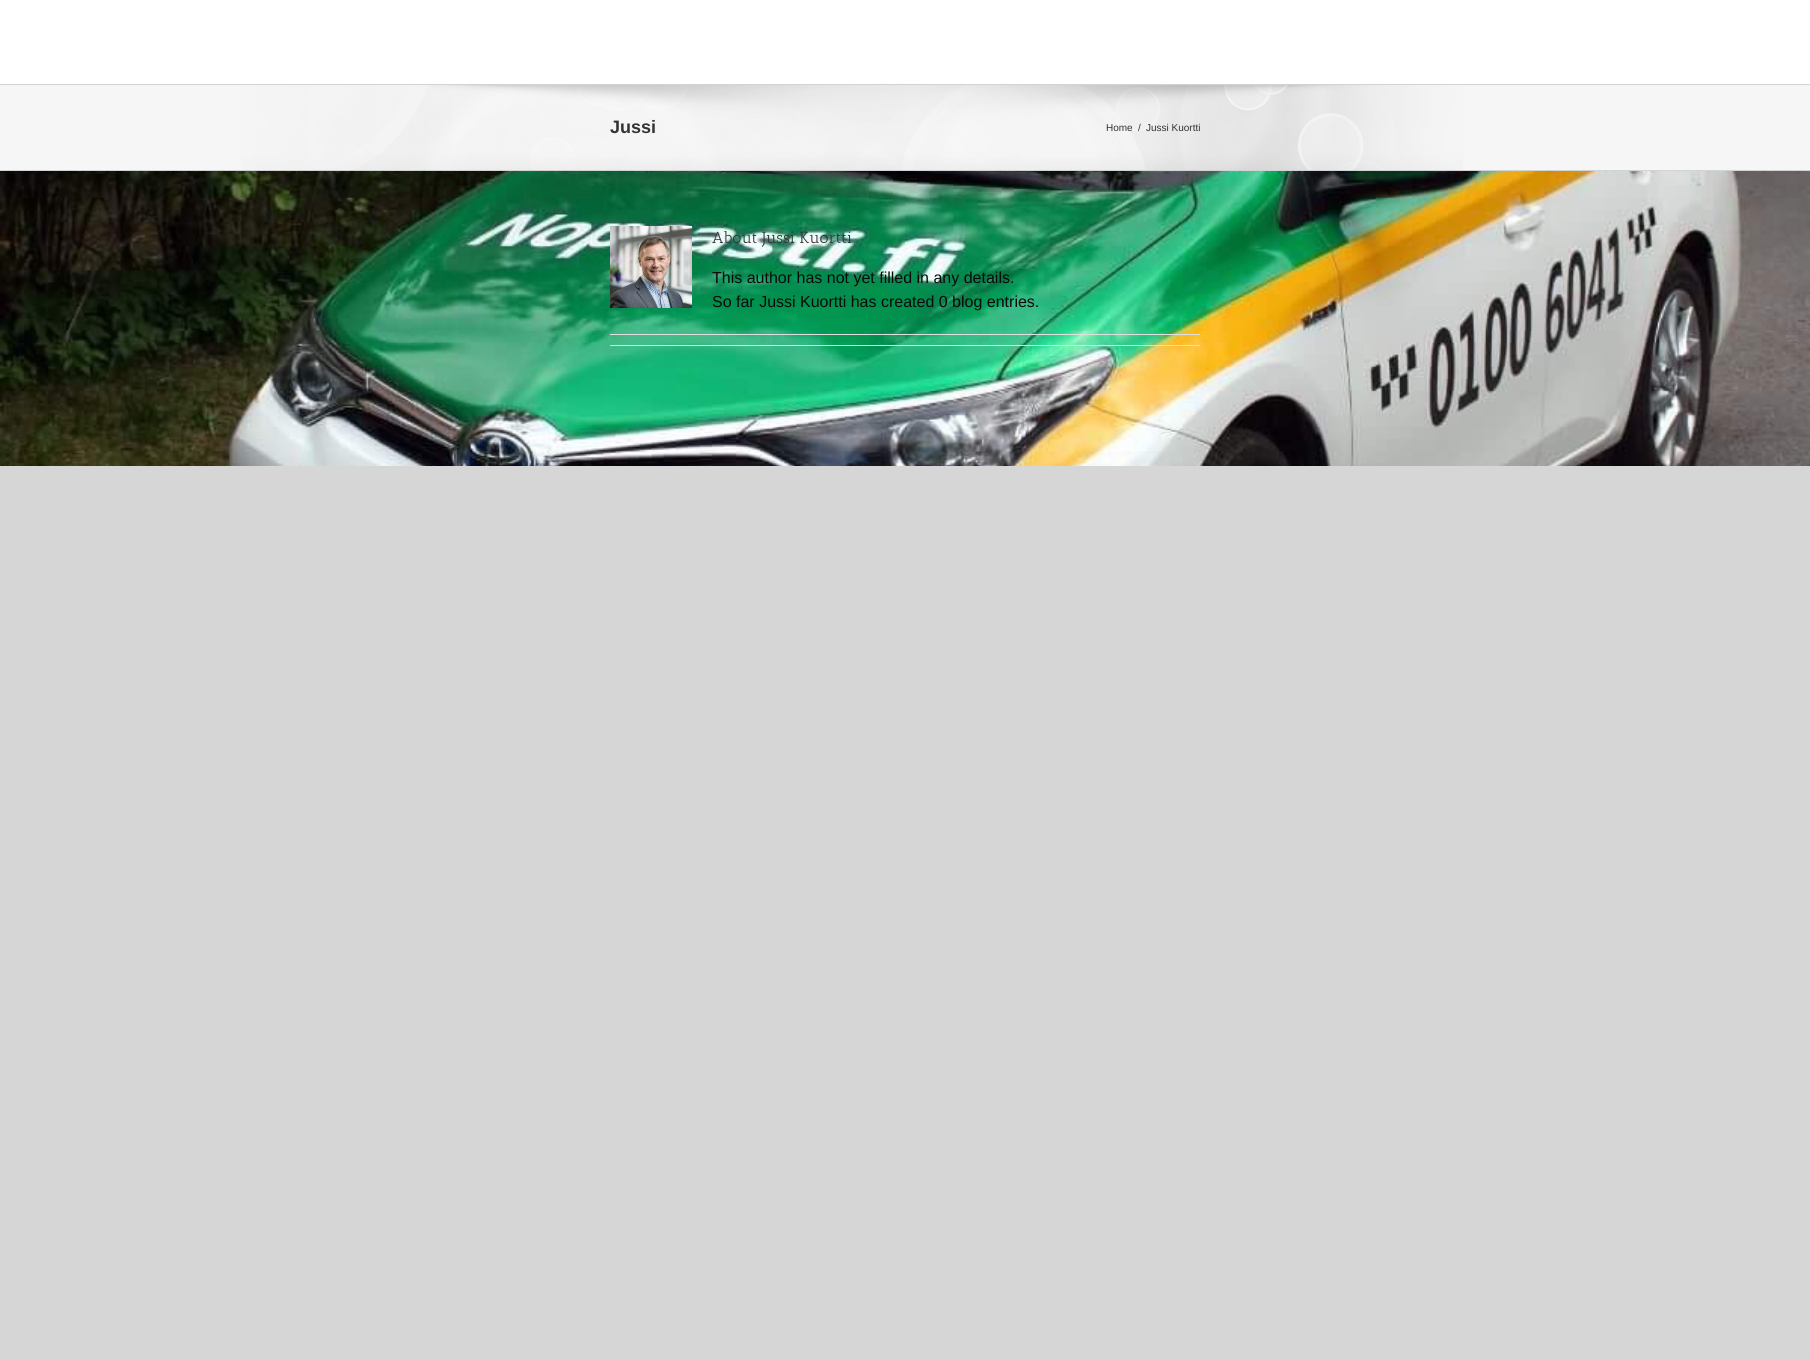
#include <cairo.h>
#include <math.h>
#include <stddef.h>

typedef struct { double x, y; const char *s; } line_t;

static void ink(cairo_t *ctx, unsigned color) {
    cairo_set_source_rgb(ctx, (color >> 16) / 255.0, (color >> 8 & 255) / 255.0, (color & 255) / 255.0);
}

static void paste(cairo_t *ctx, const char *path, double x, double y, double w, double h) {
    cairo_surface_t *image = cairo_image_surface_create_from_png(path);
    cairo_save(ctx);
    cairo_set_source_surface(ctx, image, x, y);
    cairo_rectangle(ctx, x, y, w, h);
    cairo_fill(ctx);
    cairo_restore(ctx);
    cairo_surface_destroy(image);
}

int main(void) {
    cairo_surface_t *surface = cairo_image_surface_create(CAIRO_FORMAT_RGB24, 1810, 1359);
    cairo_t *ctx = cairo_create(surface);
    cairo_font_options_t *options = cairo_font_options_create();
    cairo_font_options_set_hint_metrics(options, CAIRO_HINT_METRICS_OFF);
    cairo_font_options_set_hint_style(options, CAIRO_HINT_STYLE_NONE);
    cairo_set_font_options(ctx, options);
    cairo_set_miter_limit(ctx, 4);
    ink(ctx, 0xD7D6D6);
    cairo_paint(ctx);
    ink(ctx, 0xFFFFFF);
    cairo_rectangle(ctx, 0, 0, 1810, 84);
    cairo_fill(ctx);
    ink(ctx, 0xF6F6F6);
    cairo_rectangle(ctx, 0, 85, 1810, 85);
    cairo_fill(ctx);
    paste(ctx, "media/1.png", 241, 85, 1222, 85);
    ink(ctx, 0xD2D3D4);
    cairo_rectangle(ctx, 0, 84, 1810, 1);
    cairo_fill(ctx);
    cairo_rectangle(ctx, 0, 170, 1810, 1);
    cairo_fill(ctx);
    cairo_select_font_face(ctx, "Liberation Sans", CAIRO_FONT_SLANT_NORMAL, CAIRO_FONT_WEIGHT_BOLD);
    cairo_set_font_size(ctx, 18);
    ink(ctx, 0x333333);
    cairo_move_to(ctx, 610, 133);
    cairo_show_text(ctx, "Jussi");
    cairo_select_font_face(ctx, "Liberation Sans", CAIRO_FONT_SLANT_NORMAL, CAIRO_FONT_WEIGHT_NORMAL);
    cairo_set_font_size(ctx, 10);
    {
        static const line_t items[] = {
            {1106, 131, "Home"},
            {1138, 131, "/"},
            {1146, 131, "Jussi Kuortti"},
        };
        for (size_t i = 0; i < sizeof items / sizeof *items; i++) {
            cairo_move_to(ctx, items[i].x, items[i].y);
            cairo_show_text(ctx, items[i].s);
        }
    }
    paste(ctx, "media/2.png", 0, 171, 1810, 295);
    paste(ctx, "media/3.png", 610, 226, 82, 82);
    cairo_select_font_face(ctx, "Antic Slab", CAIRO_FONT_SLANT_NORMAL, CAIRO_FONT_WEIGHT_NORMAL);
    cairo_set_font_size(ctx, 16);
    cairo_move_to(ctx, 712, 243);
    cairo_show_text(ctx, "About Jussi Kuortti");
    cairo_select_font_face(ctx, "Liberation Sans", CAIRO_FONT_SLANT_NORMAL, CAIRO_FONT_WEIGHT_NORMAL);
    ink(ctx, 0x0A0A0A);
    cairo_move_to(ctx, 712, 283);
    cairo_show_text(ctx, "This author has not yet filled in any details.");
    cairo_move_to(ctx, 712, 307);
    cairo_show_text(ctx, "So far Jussi Kuortti has created 0 blog entries.");
    ink(ctx, 0xE0DEDE);
    cairo_rectangle(ctx, 610, 334, 590, 1);
    cairo_fill(ctx);
    cairo_rectangle(ctx, 610, 345, 590, 1);
    cairo_fill(ctx);
    cairo_surface_write_to_png(surface, "image.png");
    cairo_font_options_destroy(options);
    cairo_destroy(ctx);
    cairo_surface_destroy(surface);
    return 0;
}
